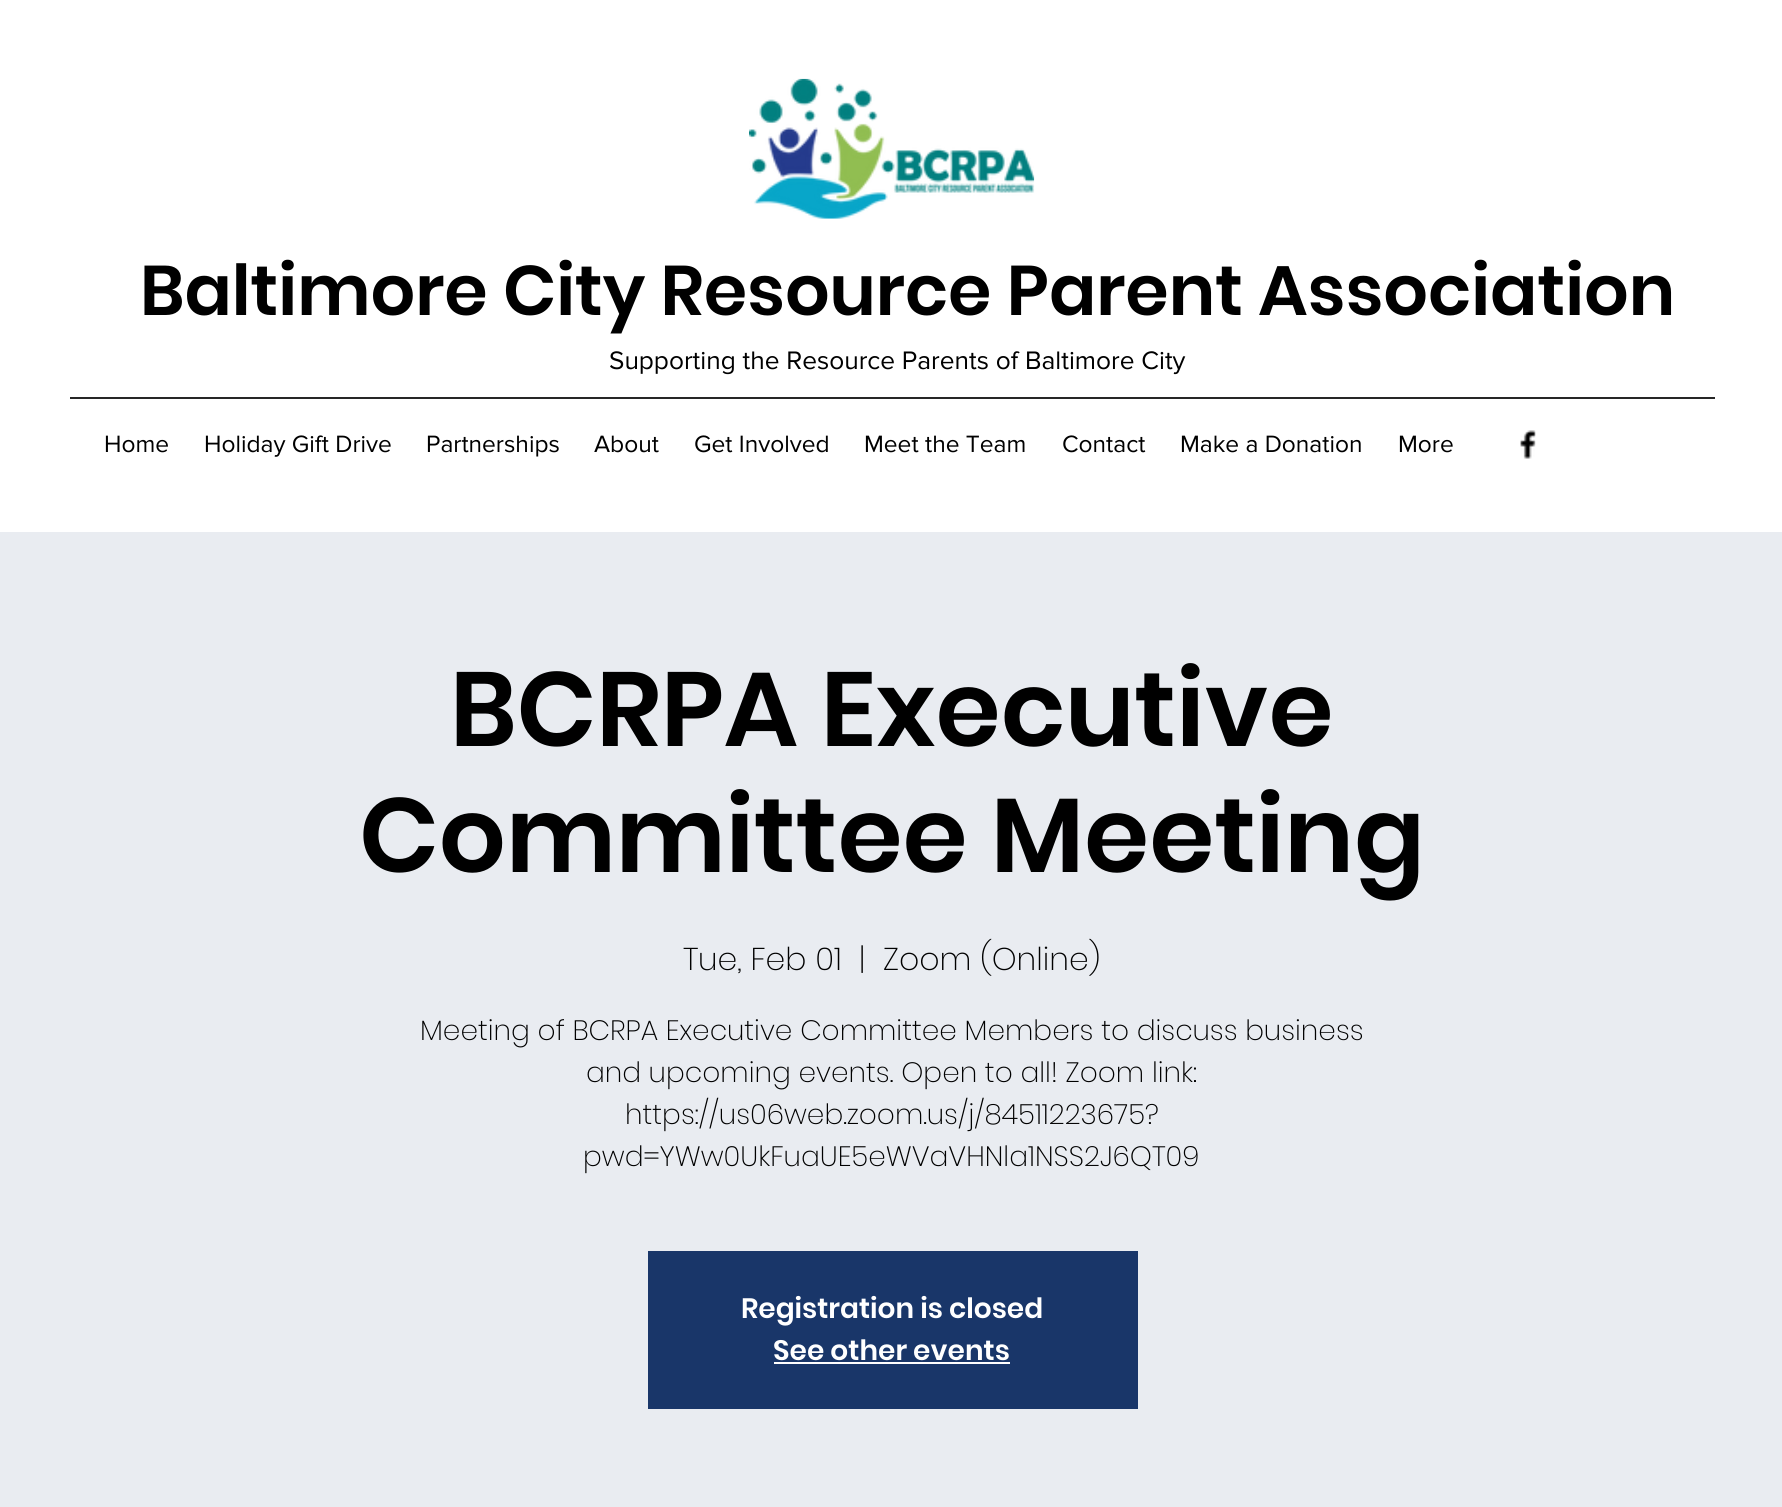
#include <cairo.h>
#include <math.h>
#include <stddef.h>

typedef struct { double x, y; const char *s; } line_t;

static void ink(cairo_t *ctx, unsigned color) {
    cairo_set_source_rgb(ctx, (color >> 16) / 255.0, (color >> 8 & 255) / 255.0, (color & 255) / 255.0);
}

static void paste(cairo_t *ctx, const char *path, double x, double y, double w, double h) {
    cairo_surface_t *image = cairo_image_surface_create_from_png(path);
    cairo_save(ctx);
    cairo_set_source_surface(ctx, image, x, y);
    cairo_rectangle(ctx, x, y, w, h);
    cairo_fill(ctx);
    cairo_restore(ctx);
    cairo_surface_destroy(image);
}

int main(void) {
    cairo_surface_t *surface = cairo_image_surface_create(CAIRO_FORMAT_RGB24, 1782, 1507);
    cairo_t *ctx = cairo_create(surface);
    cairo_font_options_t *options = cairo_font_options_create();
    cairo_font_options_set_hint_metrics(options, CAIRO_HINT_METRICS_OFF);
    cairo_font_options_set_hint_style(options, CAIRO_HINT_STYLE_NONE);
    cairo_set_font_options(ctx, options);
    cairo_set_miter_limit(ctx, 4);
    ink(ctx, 0xFFFFFF);
    cairo_paint(ctx);
    paste(ctx, "media/1.png", 749, 78, 286, 141);
    cairo_select_font_face(ctx, "Poppins SemiBold", CAIRO_FONT_SLANT_NORMAL, CAIRO_FONT_WEIGHT_NORMAL);
    cairo_set_font_size(ctx, 70);
    ink(ctx, 0x000000);
    cairo_move_to(ctx, 140, 315);
    cairo_show_text(ctx, "Baltimore City Resource Parent Association");
    cairo_select_font_face(ctx, "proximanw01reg", CAIRO_FONT_SLANT_NORMAL, CAIRO_FONT_WEIGHT_NORMAL);
    cairo_set_font_size(ctx, 26.25);
    cairo_move_to(ctx, 609, 369);
    cairo_show_text(ctx, "Supporting the Resource Parents of Baltimore City");
    ink(ctx, 0x262626);
    cairo_rectangle(ctx, 70, 397, 1645, 2);
    cairo_fill(ctx);
    cairo_set_font_size(ctx, 24.5);
    ink(ctx, 0x000000);
    {
        static const line_t items[] = {
            {104, 452, "Home"},
            {204, 452, "Holiday Gift Drive"},
            {426, 452, "Partnerships"},
            {594, 452, "About"},
            {694, 452, "Get Involved"},
            {864, 452, "Meet the Team"},
            {1062, 452, "Contact"},
            {1180, 452, "Make a Donation"},
            {1398, 452, "More"},
        };
        for (size_t i = 0; i < sizeof items / sizeof *items; i++) {
            cairo_move_to(ctx, items[i].x, items[i].y);
            cairo_show_text(ctx, items[i].s);
        }
    }
    paste(ctx, "media/2.png", 1520, 430, 16, 29);
    ink(ctx, 0xE9ECF1);
    cairo_rectangle(ctx, 0, 532, 1782, 975);
    cairo_fill(ctx);
    cairo_select_font_face(ctx, "Poppins SemiBold", CAIRO_FONT_SLANT_NORMAL, CAIRO_FONT_WEIGHT_NORMAL);
    cairo_set_font_size(ctx, 105);
    ink(ctx, 0x000000);
    cairo_move_to(ctx, 450, 746);
    cairo_show_text(ctx, "BCRPA Executive");
    cairo_move_to(ctx, 359, 872);
    cairo_show_text(ctx, "Committee Meeting");
    cairo_select_font_face(ctx, "Poppins ExtraLight", CAIRO_FONT_SLANT_NORMAL, CAIRO_FONT_WEIGHT_NORMAL);
    cairo_set_font_size(ctx, 31.5);
    {
        static const line_t items[] = {
            {683, 970, "Tue, Feb 01"},
            {859, 970, "|"},
            {883, 970, "Zoom (Online)"},
        };
        for (size_t i = 0; i < sizeof items / sizeof *items; i++) {
            cairo_move_to(ctx, items[i].x, items[i].y);
            cairo_show_text(ctx, items[i].s);
        }
    }
    cairo_set_font_size(ctx, 28);
    {
        static const line_t items[] = {
            {420, 1040, "Meeting of BCRPA Executive Committee Members to discuss business"},
            {586, 1082, "and upcoming events. Open to all! Zoom link:"},
            {625, 1124, "https://us06web.zoom.us/j/84511223675?"},
            {583, 1166, "pwd=YWw0UkFuaUE5eWVaVHNla1NSS2J6QT09"},
        };
        for (size_t i = 0; i < sizeof items / sizeof *items; i++) {
            cairo_move_to(ctx, items[i].x, items[i].y);
            cairo_show_text(ctx, items[i].s);
        }
    }
    ink(ctx, 0x193669);
    cairo_rectangle(ctx, 648, 1251, 490, 158);
    cairo_fill(ctx);
    cairo_select_font_face(ctx, "Poppins SemiBold", CAIRO_FONT_SLANT_NORMAL, CAIRO_FONT_WEIGHT_NORMAL);
    ink(ctx, 0xFFFFFF);
    cairo_move_to(ctx, 741, 1318);
    cairo_show_text(ctx, "Registration is closed");
    cairo_move_to(ctx, 773, 1360);
    cairo_show_text(ctx, "See other events");
    cairo_rectangle(ctx, 774, 1362, 236, 2);
    cairo_fill(ctx);
    cairo_surface_write_to_png(surface, "image.png");
    cairo_font_options_destroy(options);
    cairo_destroy(ctx);
    cairo_surface_destroy(surface);
    return 0;
}
